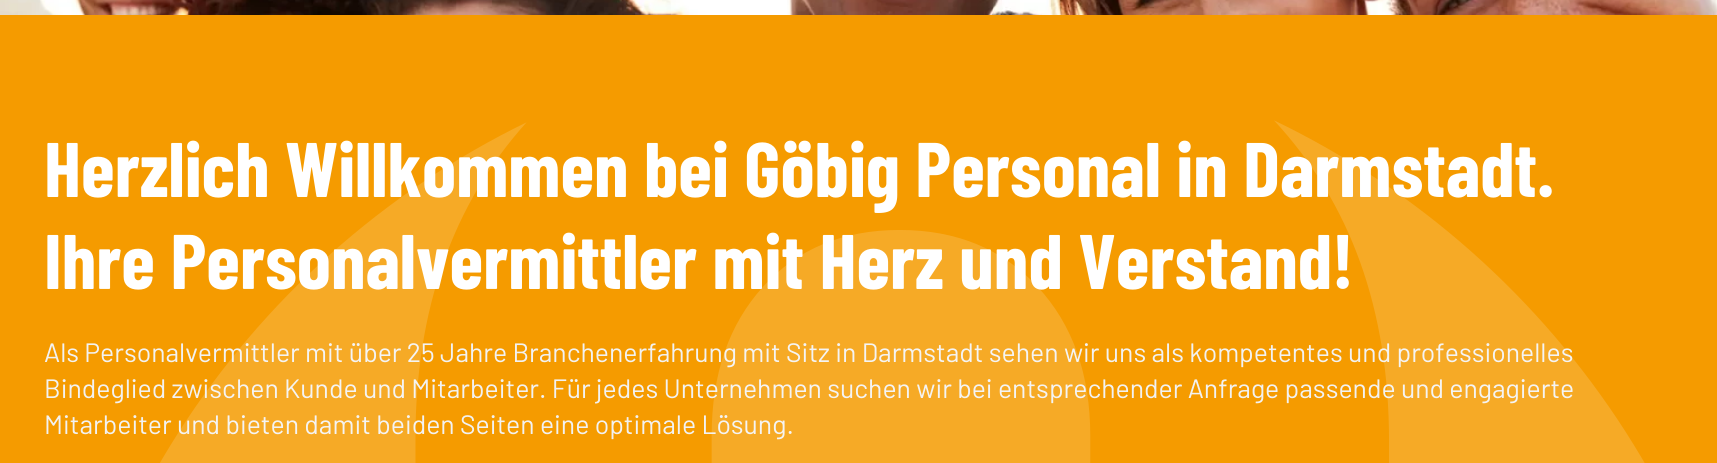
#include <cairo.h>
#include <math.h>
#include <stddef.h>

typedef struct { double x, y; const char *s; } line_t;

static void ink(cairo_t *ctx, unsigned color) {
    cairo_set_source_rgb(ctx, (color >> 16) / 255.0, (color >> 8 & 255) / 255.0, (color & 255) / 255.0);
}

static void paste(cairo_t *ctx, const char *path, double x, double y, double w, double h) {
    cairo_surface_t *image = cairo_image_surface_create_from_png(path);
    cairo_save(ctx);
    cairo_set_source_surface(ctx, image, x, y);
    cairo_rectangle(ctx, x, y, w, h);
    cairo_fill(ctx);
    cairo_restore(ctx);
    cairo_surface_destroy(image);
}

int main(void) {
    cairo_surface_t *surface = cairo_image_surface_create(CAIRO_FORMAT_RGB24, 1717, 463);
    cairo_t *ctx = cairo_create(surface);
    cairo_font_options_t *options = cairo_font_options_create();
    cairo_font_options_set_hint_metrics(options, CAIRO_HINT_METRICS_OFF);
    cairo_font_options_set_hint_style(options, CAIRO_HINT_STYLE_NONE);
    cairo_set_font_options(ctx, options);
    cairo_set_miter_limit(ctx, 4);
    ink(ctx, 0xFFFFFF);
    cairo_paint(ctx);
    paste(ctx, "media/1.png", 0, 0, 1717, 15);
    ink(ctx, 0xF59B00);
    cairo_rectangle(ctx, 0, 15, 1717, 448);
    cairo_fill(ctx);
    cairo_select_font_face(ctx, "Barlow Condensed", CAIRO_FONT_SLANT_NORMAL, CAIRO_FONT_WEIGHT_BOLD);
    cairo_set_font_size(ctx, 77.2);
    ink(ctx, 0xFFFFFF);
    cairo_move_to(ctx, 44, 197);
    cairo_show_text(ctx, "Herzlich Willkommen bei Göbig Personal in Darmstadt.");
    cairo_move_to(ctx, 44, 289);
    cairo_show_text(ctx, "Ihre Personalvermittler mit Herz und Verstand!");
    cairo_select_font_face(ctx, "Barlow", CAIRO_FONT_SLANT_NORMAL, CAIRO_FONT_WEIGHT_NORMAL);
    cairo_set_font_size(ctx, 26.58);
    ink(ctx, 0xF2F2F2);
    {
        static const line_t items[] = {
            {44, 362, "Als Personalvermittler mit über 25 Jahre Branchenerfahrung mit Sitz in Darmstadt sehen wir uns als kompetentes und professionelles"},
            {44, 398, "Bindeglied zwischen Kunde und Mitarbeiter. Für jedes Unternehmen suchen wir bei entsprechender Anfrage passende und engagierte"},
            {44, 434, "Mitarbeiter und bieten damit beiden Seiten eine optimale Lösung."},
        };
        for (size_t i = 0; i < sizeof items / sizeof *items; i++) {
            cairo_move_to(ctx, items[i].x, items[i].y);
            cairo_show_text(ctx, items[i].s);
        }
    }
    paste(ctx, "media/2.png", 160, 120, 1485, 343);
    cairo_surface_write_to_png(surface, "image.png");
    cairo_font_options_destroy(options);
    cairo_destroy(ctx);
    cairo_surface_destroy(surface);
    return 0;
}
